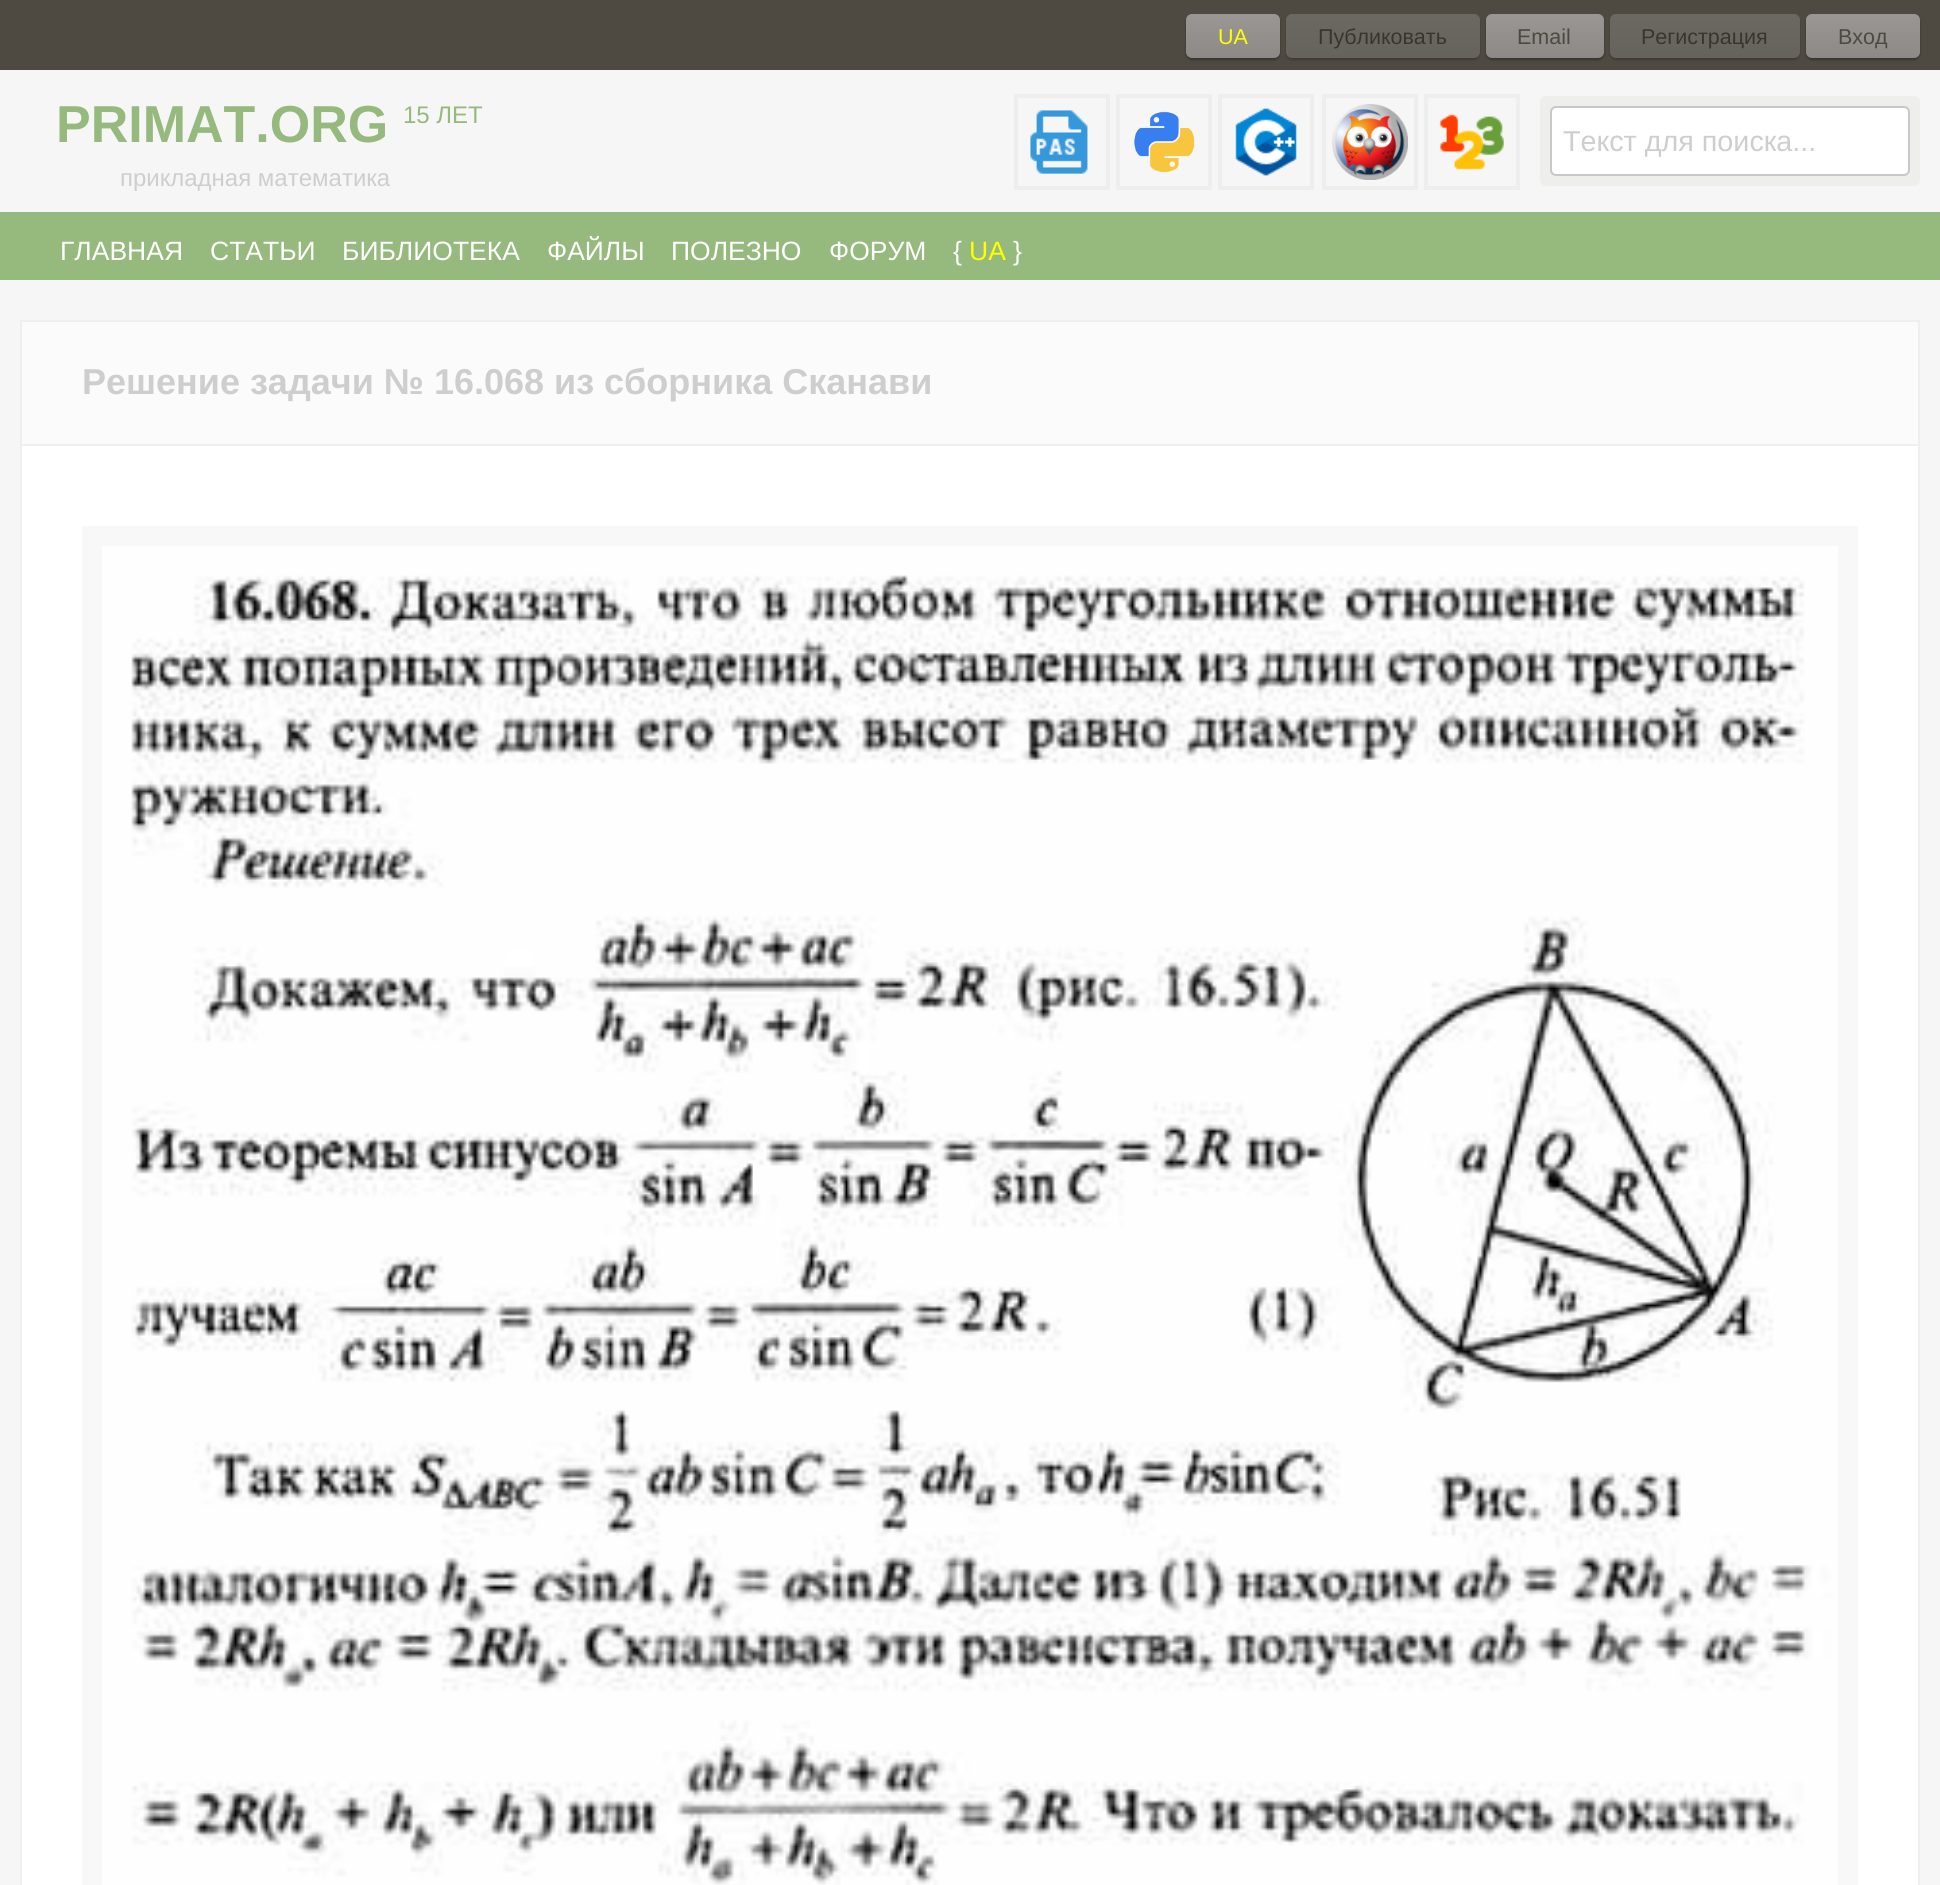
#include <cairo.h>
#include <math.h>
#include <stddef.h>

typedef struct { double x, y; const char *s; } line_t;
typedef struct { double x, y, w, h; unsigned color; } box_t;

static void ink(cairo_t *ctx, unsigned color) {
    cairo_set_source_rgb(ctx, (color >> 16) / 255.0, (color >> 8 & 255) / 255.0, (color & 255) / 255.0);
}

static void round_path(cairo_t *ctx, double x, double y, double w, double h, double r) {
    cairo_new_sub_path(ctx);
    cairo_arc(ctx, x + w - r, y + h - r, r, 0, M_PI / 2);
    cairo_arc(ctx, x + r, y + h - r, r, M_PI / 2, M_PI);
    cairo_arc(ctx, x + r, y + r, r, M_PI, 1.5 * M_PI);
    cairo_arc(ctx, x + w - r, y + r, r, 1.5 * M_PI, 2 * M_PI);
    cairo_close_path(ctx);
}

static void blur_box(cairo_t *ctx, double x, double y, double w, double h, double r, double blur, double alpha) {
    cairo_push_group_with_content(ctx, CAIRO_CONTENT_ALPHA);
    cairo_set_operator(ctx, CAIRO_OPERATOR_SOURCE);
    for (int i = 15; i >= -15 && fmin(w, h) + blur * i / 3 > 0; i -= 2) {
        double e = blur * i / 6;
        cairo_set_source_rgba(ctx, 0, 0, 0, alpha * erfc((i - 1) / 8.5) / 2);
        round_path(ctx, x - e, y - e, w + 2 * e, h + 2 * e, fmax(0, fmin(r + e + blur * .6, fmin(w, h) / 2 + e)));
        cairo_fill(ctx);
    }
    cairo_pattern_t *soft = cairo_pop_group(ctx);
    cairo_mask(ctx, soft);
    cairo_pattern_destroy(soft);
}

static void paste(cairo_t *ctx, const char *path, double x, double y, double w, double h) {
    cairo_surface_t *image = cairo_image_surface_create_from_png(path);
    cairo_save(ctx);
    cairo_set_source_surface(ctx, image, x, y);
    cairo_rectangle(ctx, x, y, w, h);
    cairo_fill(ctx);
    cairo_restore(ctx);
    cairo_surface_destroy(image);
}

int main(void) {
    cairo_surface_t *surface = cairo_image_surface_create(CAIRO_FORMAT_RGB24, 1940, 1885);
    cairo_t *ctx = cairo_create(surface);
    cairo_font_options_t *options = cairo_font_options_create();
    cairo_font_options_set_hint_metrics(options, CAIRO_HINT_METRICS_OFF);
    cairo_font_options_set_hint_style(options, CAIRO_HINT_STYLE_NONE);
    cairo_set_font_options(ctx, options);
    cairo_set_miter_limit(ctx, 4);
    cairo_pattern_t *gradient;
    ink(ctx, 0xF6F6F6);
    cairo_paint(ctx);
    ink(ctx, 0x4E4941);
    cairo_rectangle(ctx, 0, 0, 1940, 70);
    cairo_fill(ctx);
    ink(ctx, 0x000000);
    blur_box(ctx, 1186, 16, 94, 44, 6, 1, 0.3);
    gradient = cairo_pattern_create_linear(1233, 58, 1233, -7.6);
    cairo_pattern_add_color_stop_rgba(gradient, 0, 0.549, 0.537, 0.525, 1);
    cairo_pattern_add_color_stop_rgba(gradient, 1, 0.627, 0.616, 0.604, 1);
    cairo_set_source(ctx, gradient);
    cairo_pattern_destroy(gradient);
    round_path(ctx, 1186, 14, 94, 44, 6);
    cairo_fill(ctx);
    cairo_select_font_face(ctx, "Liberation Sans", CAIRO_FONT_SLANT_NORMAL, CAIRO_FONT_WEIGHT_NORMAL);
    cairo_set_font_size(ctx, 21.5);
    ink(ctx, 0xFFFF00);
    cairo_move_to(ctx, 1218, 44);
    cairo_show_text(ctx, "UA");
    ink(ctx, 0x000000);
    blur_box(ctx, 1286, 16, 194, 44, 6, 1, 0.2);
    gradient = cairo_pattern_create_linear(1383, 58, 1383, -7.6);
    cairo_pattern_add_color_stop_rgba(gradient, 0, 0.4, 0.388, 0.365, 1);
    cairo_pattern_add_color_stop_rgba(gradient, 1, 0.431, 0.42, 0.396, 1);
    cairo_set_source(ctx, gradient);
    cairo_pattern_destroy(gradient);
    round_path(ctx, 1286, 14, 194, 44, 6);
    cairo_fill(ctx);
    ink(ctx, 0x39352D);
    cairo_move_to(ctx, 1318, 44);
    cairo_show_text(ctx, "Публиковать");
    ink(ctx, 0x000000);
    blur_box(ctx, 1486, 16, 118, 44, 6, 1, 0.3);
    gradient = cairo_pattern_create_linear(1545, 58, 1545, -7.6);
    cairo_pattern_add_color_stop_rgba(gradient, 0, 0.549, 0.537, 0.525, 1);
    cairo_pattern_add_color_stop_rgba(gradient, 1, 0.627, 0.616, 0.604, 1);
    cairo_set_source(ctx, gradient);
    cairo_pattern_destroy(gradient);
    round_path(ctx, 1486, 14, 118, 44, 6);
    cairo_fill(ctx);
    ink(ctx, 0x4E4940);
    cairo_move_to(ctx, 1517, 44);
    cairo_show_text(ctx, "Email");
    ink(ctx, 0x000000);
    blur_box(ctx, 1610, 16, 190, 44, 6, 1, 0.2);
    gradient = cairo_pattern_create_linear(1705, 58, 1705, -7.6);
    cairo_pattern_add_color_stop_rgba(gradient, 0, 0.4, 0.388, 0.365, 1);
    cairo_pattern_add_color_stop_rgba(gradient, 1, 0.431, 0.42, 0.396, 1);
    cairo_set_source(ctx, gradient);
    cairo_pattern_destroy(gradient);
    round_path(ctx, 1610, 14, 190, 44, 6);
    cairo_fill(ctx);
    ink(ctx, 0x39352D);
    cairo_move_to(ctx, 1641, 44);
    cairo_show_text(ctx, "Регистрация");
    cairo_save(ctx);
    cairo_set_fill_rule(ctx, CAIRO_FILL_RULE_EVEN_ODD);
    cairo_new_path(ctx);
    cairo_move_to(ctx, 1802, 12);
    cairo_line_to(ctx, 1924, 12);
    cairo_line_to(ctx, 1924, 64);
    cairo_line_to(ctx, 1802, 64);
    cairo_close_path(ctx);
    cairo_move_to(ctx, 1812, 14);
    cairo_line_to(ctx, 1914, 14);
    cairo_curve_to(ctx, 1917.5, 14, 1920, 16.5, 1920, 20);
    cairo_line_to(ctx, 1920, 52);
    cairo_curve_to(ctx, 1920, 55.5, 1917.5, 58, 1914, 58);
    cairo_line_to(ctx, 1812, 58);
    cairo_curve_to(ctx, 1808.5, 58, 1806, 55.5, 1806, 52);
    cairo_line_to(ctx, 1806, 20);
    cairo_curve_to(ctx, 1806, 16.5, 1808.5, 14, 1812, 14);
    cairo_close_path(ctx);
    cairo_clip(ctx);
    ink(ctx, 0x000000);
    blur_box(ctx, 1806, 16, 114, 44, 6, 1, 0.3);
    cairo_restore(ctx);
    gradient = cairo_pattern_create_linear(1863, 58, 1863, -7.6);
    cairo_pattern_add_color_stop_rgba(gradient, 0, 0.549, 0.537, 0.525, 1);
    cairo_pattern_add_color_stop_rgba(gradient, 1, 0.627, 0.616, 0.604, 1);
    cairo_set_source(ctx, gradient);
    cairo_pattern_destroy(gradient);
    round_path(ctx, 1806, 14, 114, 44, 6);
    cairo_fill(ctx);
    ink(ctx, 0x4E4940);
    cairo_move_to(ctx, 1838, 44);
    cairo_show_text(ctx, "Вход");
    cairo_select_font_face(ctx, "Liberation Sans", CAIRO_FONT_SLANT_NORMAL, CAIRO_FONT_WEIGHT_BOLD);
    cairo_set_font_size(ctx, 52);
    ink(ctx, 0x96B97D);
    cairo_move_to(ctx, 56, 142);
    cairo_show_text(ctx, "PRIMAT.ORG");
    cairo_select_font_face(ctx, "Liberation Sans", CAIRO_FONT_SLANT_NORMAL, CAIRO_FONT_WEIGHT_NORMAL);
    cairo_set_font_size(ctx, 24);
    cairo_move_to(ctx, 403, 123);
    cairo_show_text(ctx, "15 ЛЕТ");
    ink(ctx, 0xCECECE);
    cairo_move_to(ctx, 120, 186);
    cairo_show_text(ctx, "прикладная математика");
    cairo_rectangle(ctx, 1016, 96, 92, 92);
    ink(ctx, 0xEEEEEE);
    cairo_set_line_width(ctx, 4);
    cairo_stroke(ctx);
    cairo_rectangle(ctx, 1118, 96, 92, 92);
    cairo_stroke(ctx);
    cairo_rectangle(ctx, 1220, 96, 92, 92);
    cairo_stroke(ctx);
    cairo_rectangle(ctx, 1324, 96, 92, 92);
    cairo_stroke(ctx);
    cairo_rectangle(ctx, 1426, 96, 92, 92);
    cairo_stroke(ctx);
    paste(ctx, "media/1.png", 1030, 110, 58, 64);
    paste(ctx, "media/2.png", 1134, 111, 61, 62);
    paste(ctx, "media/3.png", 1235, 108, 62, 68);
    paste(ctx, "media/4.png", 1332, 104, 76, 76);
    paste(ctx, "media/5.png", 1440, 114, 64, 56);
    ink(ctx, 0xEEEFED);
    round_path(ctx, 1540, 96, 380, 90, 6);
    cairo_fill(ctx);
    ink(ctx, 0xFFFFFF);
    round_path(ctx, 1551, 107, 358, 68, 5);
    cairo_fill_preserve(ctx);
    ink(ctx, 0xC8C8C8);
    cairo_set_line_width(ctx, 2);
    cairo_stroke(ctx);
    cairo_set_font_size(ctx, 28.75);
    ink(ctx, 0xCECECE);
    cairo_move_to(ctx, 1563, 151);
    cairo_show_text(ctx, "Текст для поиска...");
    ink(ctx, 0x96B97D);
    cairo_rectangle(ctx, 0, 212, 1940, 68);
    cairo_fill(ctx);
    cairo_set_font_size(ctx, 26.5);
    ink(ctx, 0xFFFFFF);
    {
        static const line_t items[] = {
            {60, 260, "ГЛАВНАЯ"},
            {210, 260, "СТАТЬИ"},
            {342, 260, "БИБЛИОТЕКА"},
            {547, 260, "ФАЙЛЫ"},
            {671, 260, "ПОЛЕЗНО"},
            {829, 260, "ФОРУМ"},
            {953, 260, "{"},
        };
        for (size_t i = 0; i < sizeof items / sizeof *items; i++) {
            cairo_move_to(ctx, items[i].x, items[i].y);
            cairo_show_text(ctx, items[i].s);
        }
    }
    ink(ctx, 0xFFFF00);
    cairo_move_to(ctx, 969, 260);
    cairo_show_text(ctx, "UA");
    ink(ctx, 0xFFFFFF);
    cairo_move_to(ctx, 1013, 260);
    cairo_show_text(ctx, "}");
    {
        static const box_t items[] = {
            {22, 446, 1896, 1439, 0xFFFFFF},
            {20, 320, 1900, 2, 0xEFEFEF},
            {1918, 320, 2, 1565, 0xEFEFEF},
            {20, 320, 2, 1565, 0xEFEFEF},
            {22, 322, 1896, 122, 0xFBFBFB},
            {22, 444, 1896, 2, 0xEFEFEF},
        };
        for (size_t i = 0; i < sizeof items / sizeof *items; i++) {
            ink(ctx, items[i].color);
            cairo_rectangle(ctx, items[i].x, items[i].y, items[i].w, items[i].h);
            cairo_fill(ctx);
        }
    }
    cairo_select_font_face(ctx, "Liberation Sans", CAIRO_FONT_SLANT_NORMAL, CAIRO_FONT_WEIGHT_BOLD);
    cairo_set_font_size(ctx, 36);
    ink(ctx, 0xCECECE);
    cairo_move_to(ctx, 82, 394);
    cairo_show_text(ctx, "Решение задачи № 16.068 из сборника Сканави");
    ink(ctx, 0xF8F8F8);
    cairo_rectangle(ctx, 82, 526, 1776, 1359);
    cairo_fill(ctx);
    paste(ctx, "media/6.png", 102, 546, 1736, 1339);
    cairo_surface_write_to_png(surface, "image.png");
    cairo_font_options_destroy(options);
    cairo_destroy(ctx);
    cairo_surface_destroy(surface);
    return 0;
}
